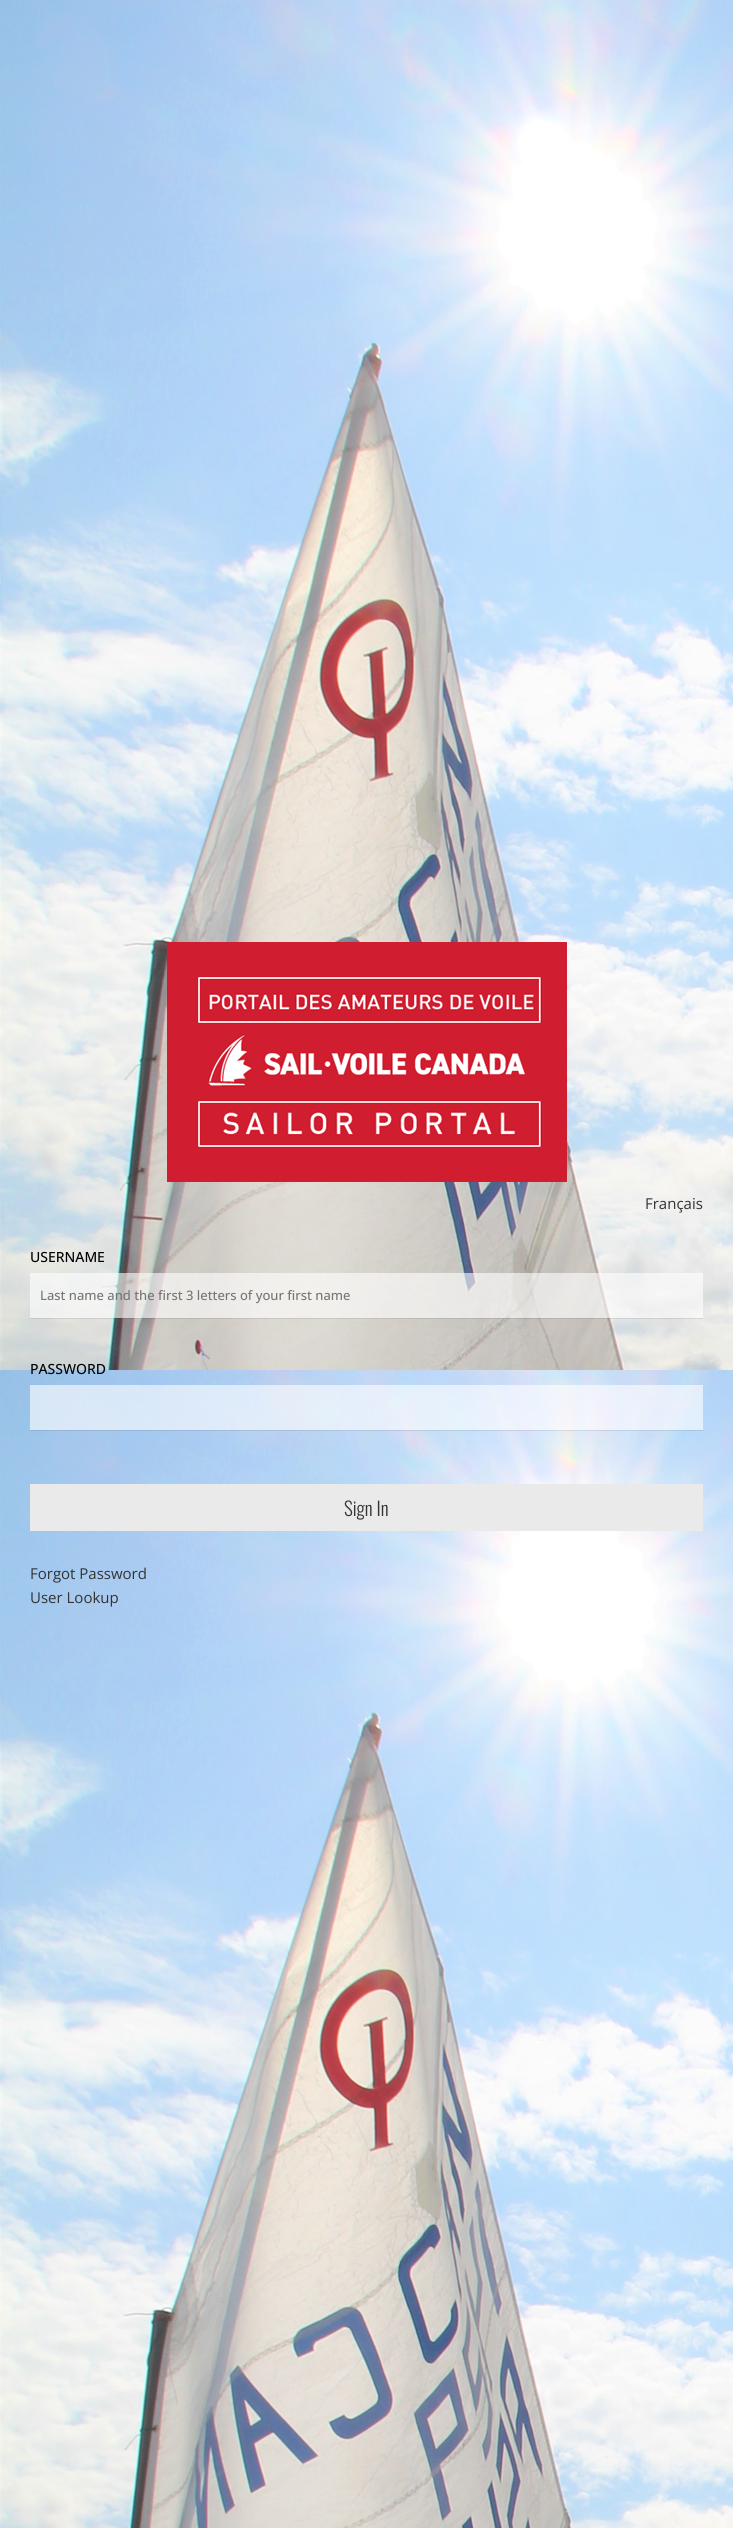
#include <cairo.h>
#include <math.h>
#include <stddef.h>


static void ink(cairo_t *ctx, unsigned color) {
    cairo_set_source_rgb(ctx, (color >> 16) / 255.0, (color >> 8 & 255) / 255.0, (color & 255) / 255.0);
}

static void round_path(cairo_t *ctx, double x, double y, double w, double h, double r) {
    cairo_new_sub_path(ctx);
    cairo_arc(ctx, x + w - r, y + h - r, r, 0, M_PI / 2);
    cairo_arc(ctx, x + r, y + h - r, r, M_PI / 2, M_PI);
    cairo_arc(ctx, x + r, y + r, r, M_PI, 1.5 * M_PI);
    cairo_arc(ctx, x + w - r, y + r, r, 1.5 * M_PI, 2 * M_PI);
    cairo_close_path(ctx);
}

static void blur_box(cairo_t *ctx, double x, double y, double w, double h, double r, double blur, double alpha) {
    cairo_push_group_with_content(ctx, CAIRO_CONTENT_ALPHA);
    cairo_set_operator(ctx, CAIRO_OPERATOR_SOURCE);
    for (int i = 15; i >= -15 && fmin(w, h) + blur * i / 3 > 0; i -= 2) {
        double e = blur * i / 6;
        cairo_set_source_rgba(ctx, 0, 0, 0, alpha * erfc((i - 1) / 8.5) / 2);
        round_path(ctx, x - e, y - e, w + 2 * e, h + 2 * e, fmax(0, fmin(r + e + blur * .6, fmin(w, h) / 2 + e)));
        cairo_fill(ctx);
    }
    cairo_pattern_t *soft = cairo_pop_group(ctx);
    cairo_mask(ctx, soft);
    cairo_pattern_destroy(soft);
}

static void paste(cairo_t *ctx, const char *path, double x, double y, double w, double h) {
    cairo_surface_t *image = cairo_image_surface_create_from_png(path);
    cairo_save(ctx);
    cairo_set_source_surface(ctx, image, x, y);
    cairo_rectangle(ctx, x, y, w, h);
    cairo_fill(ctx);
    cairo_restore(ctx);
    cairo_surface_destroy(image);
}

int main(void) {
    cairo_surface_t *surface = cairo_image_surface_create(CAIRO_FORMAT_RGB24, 733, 2528);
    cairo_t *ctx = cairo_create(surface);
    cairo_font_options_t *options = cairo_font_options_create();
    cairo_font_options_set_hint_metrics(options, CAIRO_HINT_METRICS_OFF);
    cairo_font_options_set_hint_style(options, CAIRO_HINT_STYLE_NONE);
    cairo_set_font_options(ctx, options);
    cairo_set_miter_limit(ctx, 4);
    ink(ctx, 0xFFFFFF);
    cairo_paint(ctx);
    paste(ctx, "media/1.png", 0, 0, 733, 2528);
    paste(ctx, "media/2.png", 167, 942, 400, 240);
    cairo_select_font_face(ctx, "Open Sans", CAIRO_FONT_SLANT_NORMAL, CAIRO_FONT_WEIGHT_NORMAL);
    cairo_set_font_size(ctx, 15);
    ink(ctx, 0x333333);
    cairo_move_to(ctx, 645, 1209);
    cairo_show_text(ctx, "Français");
    cairo_select_font_face(ctx, "Open Sans Medium", CAIRO_FONT_SLANT_NORMAL, CAIRO_FONT_WEIGHT_NORMAL);
    cairo_set_font_size(ctx, 14);
    ink(ctx, 0x000000);
    cairo_move_to(ctx, 30, 1262);
    cairo_show_text(ctx, "USERNAME");
    cairo_save(ctx);
    cairo_rectangle(ctx, 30, 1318, 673, 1);
    cairo_clip(ctx);
    ink(ctx, 0x000000);
    blur_box(ctx, 30, 1274, 673, 45, 0, 0.5, 0.1);
    cairo_restore(ctx);
    cairo_set_source_rgba(ctx, 1, 1, 1, 0.6);
    cairo_rectangle(ctx, 30, 1273, 673, 45);
    cairo_fill(ctx);
    cairo_set_font_size(ctx, 13);
    ink(ctx, 0x757575);
    cairo_move_to(ctx, 40, 1300);
    cairo_show_text(ctx, "Last name and the first 3 letters of your first name");
    cairo_set_font_size(ctx, 14);
    ink(ctx, 0x000000);
    cairo_move_to(ctx, 30, 1374);
    cairo_show_text(ctx, "PASSWORD");
    cairo_save(ctx);
    cairo_rectangle(ctx, 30, 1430, 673, 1);
    cairo_clip(ctx);
    ink(ctx, 0x000000);
    blur_box(ctx, 30, 1386, 673, 45, 0, 0.5, 0.1);
    cairo_restore(ctx);
    cairo_set_source_rgba(ctx, 1, 1, 1, 0.6);
    cairo_rectangle(ctx, 30, 1385, 673, 45);
    cairo_fill(ctx);
    ink(ctx, 0xEAEAEA);
    cairo_rectangle(ctx, 30, 1484, 673, 47);
    cairo_fill(ctx);
    cairo_select_font_face(ctx, "Oswald Light", CAIRO_FONT_SLANT_NORMAL, CAIRO_FONT_WEIGHT_NORMAL);
    cairo_set_font_size(ctx, 19);
    ink(ctx, 0x333333);
    cairo_move_to(ctx, 344, 1516);
    cairo_show_text(ctx, "Sign In");
    cairo_select_font_face(ctx, "Open Sans", CAIRO_FONT_SLANT_NORMAL, CAIRO_FONT_WEIGHT_NORMAL);
    cairo_set_font_size(ctx, 15);
    cairo_move_to(ctx, 30, 1579);
    cairo_show_text(ctx, "Forgot Password");
    cairo_move_to(ctx, 30, 1603);
    cairo_show_text(ctx, "User Lookup");
    cairo_surface_write_to_png(surface, "image.png");
    cairo_font_options_destroy(options);
    cairo_destroy(ctx);
    cairo_surface_destroy(surface);
    return 0;
}
